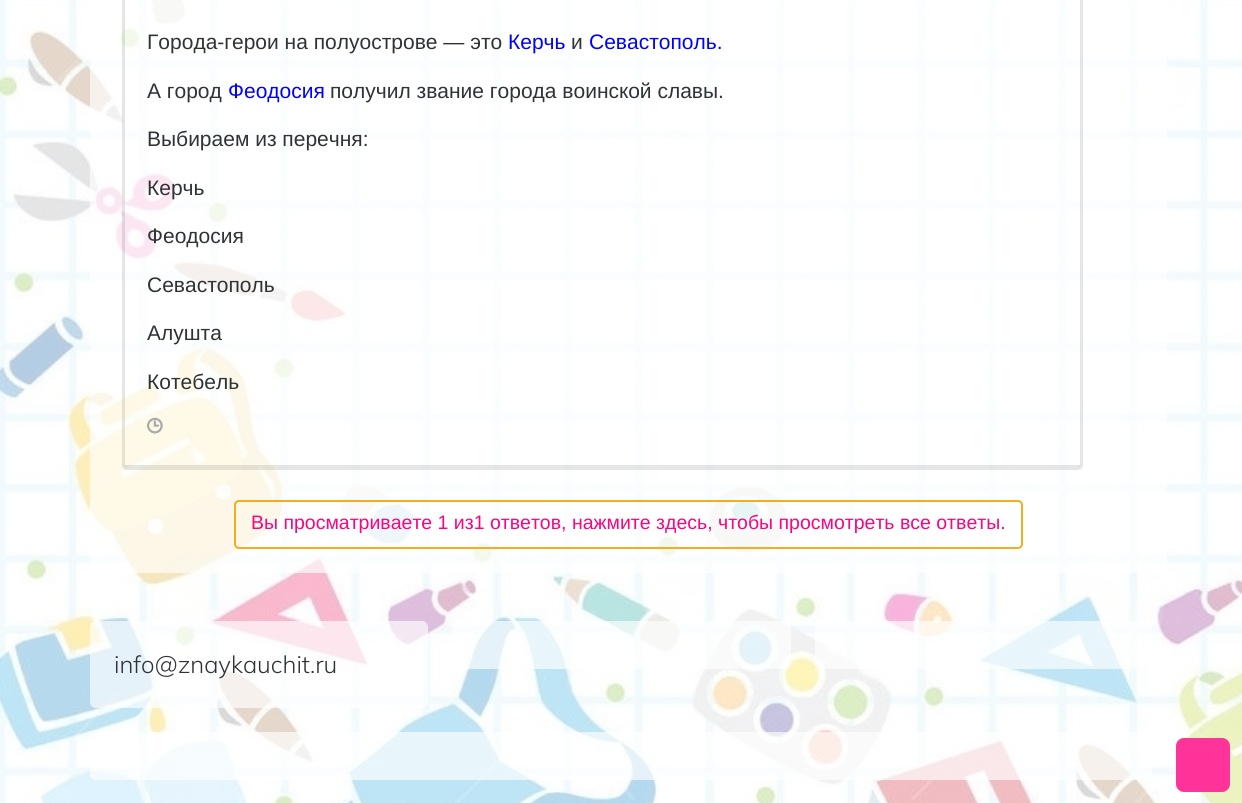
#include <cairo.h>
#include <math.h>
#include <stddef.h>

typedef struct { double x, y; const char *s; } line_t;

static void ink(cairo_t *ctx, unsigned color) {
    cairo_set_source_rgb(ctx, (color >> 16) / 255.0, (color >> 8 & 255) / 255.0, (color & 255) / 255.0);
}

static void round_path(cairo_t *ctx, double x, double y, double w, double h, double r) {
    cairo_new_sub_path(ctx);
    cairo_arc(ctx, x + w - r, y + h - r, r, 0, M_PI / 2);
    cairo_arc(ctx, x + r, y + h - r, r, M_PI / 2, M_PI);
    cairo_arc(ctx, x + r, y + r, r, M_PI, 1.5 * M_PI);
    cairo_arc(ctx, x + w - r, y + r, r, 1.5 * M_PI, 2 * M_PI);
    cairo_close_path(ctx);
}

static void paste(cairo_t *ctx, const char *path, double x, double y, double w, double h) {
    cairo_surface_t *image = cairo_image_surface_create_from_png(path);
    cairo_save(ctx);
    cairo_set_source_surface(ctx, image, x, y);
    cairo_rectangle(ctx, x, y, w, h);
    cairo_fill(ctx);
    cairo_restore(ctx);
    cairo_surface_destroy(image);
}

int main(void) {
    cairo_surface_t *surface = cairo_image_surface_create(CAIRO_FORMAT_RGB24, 1242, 803);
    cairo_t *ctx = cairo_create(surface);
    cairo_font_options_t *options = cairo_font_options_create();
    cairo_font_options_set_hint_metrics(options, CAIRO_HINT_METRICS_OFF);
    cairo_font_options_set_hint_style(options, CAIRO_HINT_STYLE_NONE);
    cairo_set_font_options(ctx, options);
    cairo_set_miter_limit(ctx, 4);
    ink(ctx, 0xFFFFFF);
    cairo_paint(ctx);
    paste(ctx, "media/1.png", 0, 0, 1242, 803);
    cairo_set_source_rgba(ctx, 1, 1, 1, 0.65);
    round_path(ctx, 90, -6, 1077, 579, 6);
    cairo_fill(ctx);
    round_path(ctx, 123.5, -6.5, 958, 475, 3.5);
    cairo_set_source_rgba(ctx, 0, 0, 0, 0.1);
    cairo_set_line_width(ctx, 3);
    cairo_stroke(ctx);
    cairo_select_font_face(ctx, "Liberation Sans", CAIRO_FONT_SLANT_NORMAL, CAIRO_FONT_WEIGHT_NORMAL);
    cairo_set_font_size(ctx, 21);
    ink(ctx, 0x303336);
    cairo_move_to(ctx, 147, 49);
    cairo_show_text(ctx, "Города-герои на полуострове — это");
    ink(ctx, 0x0000FF);
    cairo_move_to(ctx, 508, 49);
    cairo_show_text(ctx, "Керчь");
    ink(ctx, 0x303336);
    cairo_move_to(ctx, 571, 49);
    cairo_show_text(ctx, "и");
    ink(ctx, 0x0000FF);
    cairo_move_to(ctx, 589, 49);
    cairo_show_text(ctx, "Севастополь.");
    ink(ctx, 0x303336);
    cairo_move_to(ctx, 147, 98);
    cairo_show_text(ctx, "А город");
    ink(ctx, 0x0000FF);
    cairo_move_to(ctx, 228, 98);
    cairo_show_text(ctx, "Феодосия");
    ink(ctx, 0x303336);
    {
        static const line_t items[] = {
            {330, 98, "получил звание города воинской славы."},
            {147, 146, "Выбираем из перечня:"},
            {147, 195, "Керчь"},
            {147, 243, "Феодосия"},
            {147, 292, "Севастополь"},
            {147, 340, "Алушта"},
            {147, 389, "Котебель"},
        };
        for (size_t i = 0; i < sizeof items / sizeof *items; i++) {
            cairo_move_to(ctx, items[i].x, items[i].y);
            cairo_show_text(ctx, items[i].s);
        }
    }
    paste(ctx, "media/2.png", 147, 417, 16, 17);
    cairo_set_source_rgba(ctx, 0, 0, 0, 0.1);
    cairo_rectangle(ctx, 125, 465, 955, 2);
    cairo_fill(ctx);
    round_path(ctx, 235, 501, 787, 47, 4);
    ink(ctx, 0xF4AC20);
    cairo_set_line_width(ctx, 2);
    cairo_stroke(ctx);
    cairo_set_font_size(ctx, 19.5);
    ink(ctx, 0xFC0380);
    cairo_move_to(ctx, 251, 529);
    cairo_show_text(ctx, "Вы просматриваете 1 из1 ответов, нажмите здесь, чтобы просмотреть все ответы.");
    cairo_set_source_rgba(ctx, 1, 1, 1, 0.65);
    round_path(ctx, 90, 621, 338, 87, 6);
    cairo_fill(ctx);
    cairo_select_font_face(ctx, "Mulish Light", CAIRO_FONT_SLANT_NORMAL, CAIRO_FONT_WEIGHT_NORMAL);
    cairo_set_font_size(ctx, 24);
    ink(ctx, 0x303336);
    cairo_move_to(ctx, 114, 673);
    cairo_show_text(ctx, "info@znaykauchit.ru");
    cairo_set_source_rgba(ctx, 1, 1, 1, 0.65);
    round_path(ctx, 452, 621, 339, 48, 6);
    cairo_fill(ctx);
    round_path(ctx, 815, 621, 337, 48, 6);
    cairo_fill(ctx);
    round_path(ctx, 90, 732, 1062, 48, 6);
    cairo_fill(ctx);
    ink(ctx, 0xFF3399);
    round_path(ctx, 1177.5, 739.5, 51, 51, 6.5);
    cairo_fill_preserve(ctx);
    cairo_set_line_width(ctx, 3);
    cairo_stroke(ctx);
    cairo_surface_write_to_png(surface, "image.png");
    cairo_font_options_destroy(options);
    cairo_destroy(ctx);
    cairo_surface_destroy(surface);
    return 0;
}
